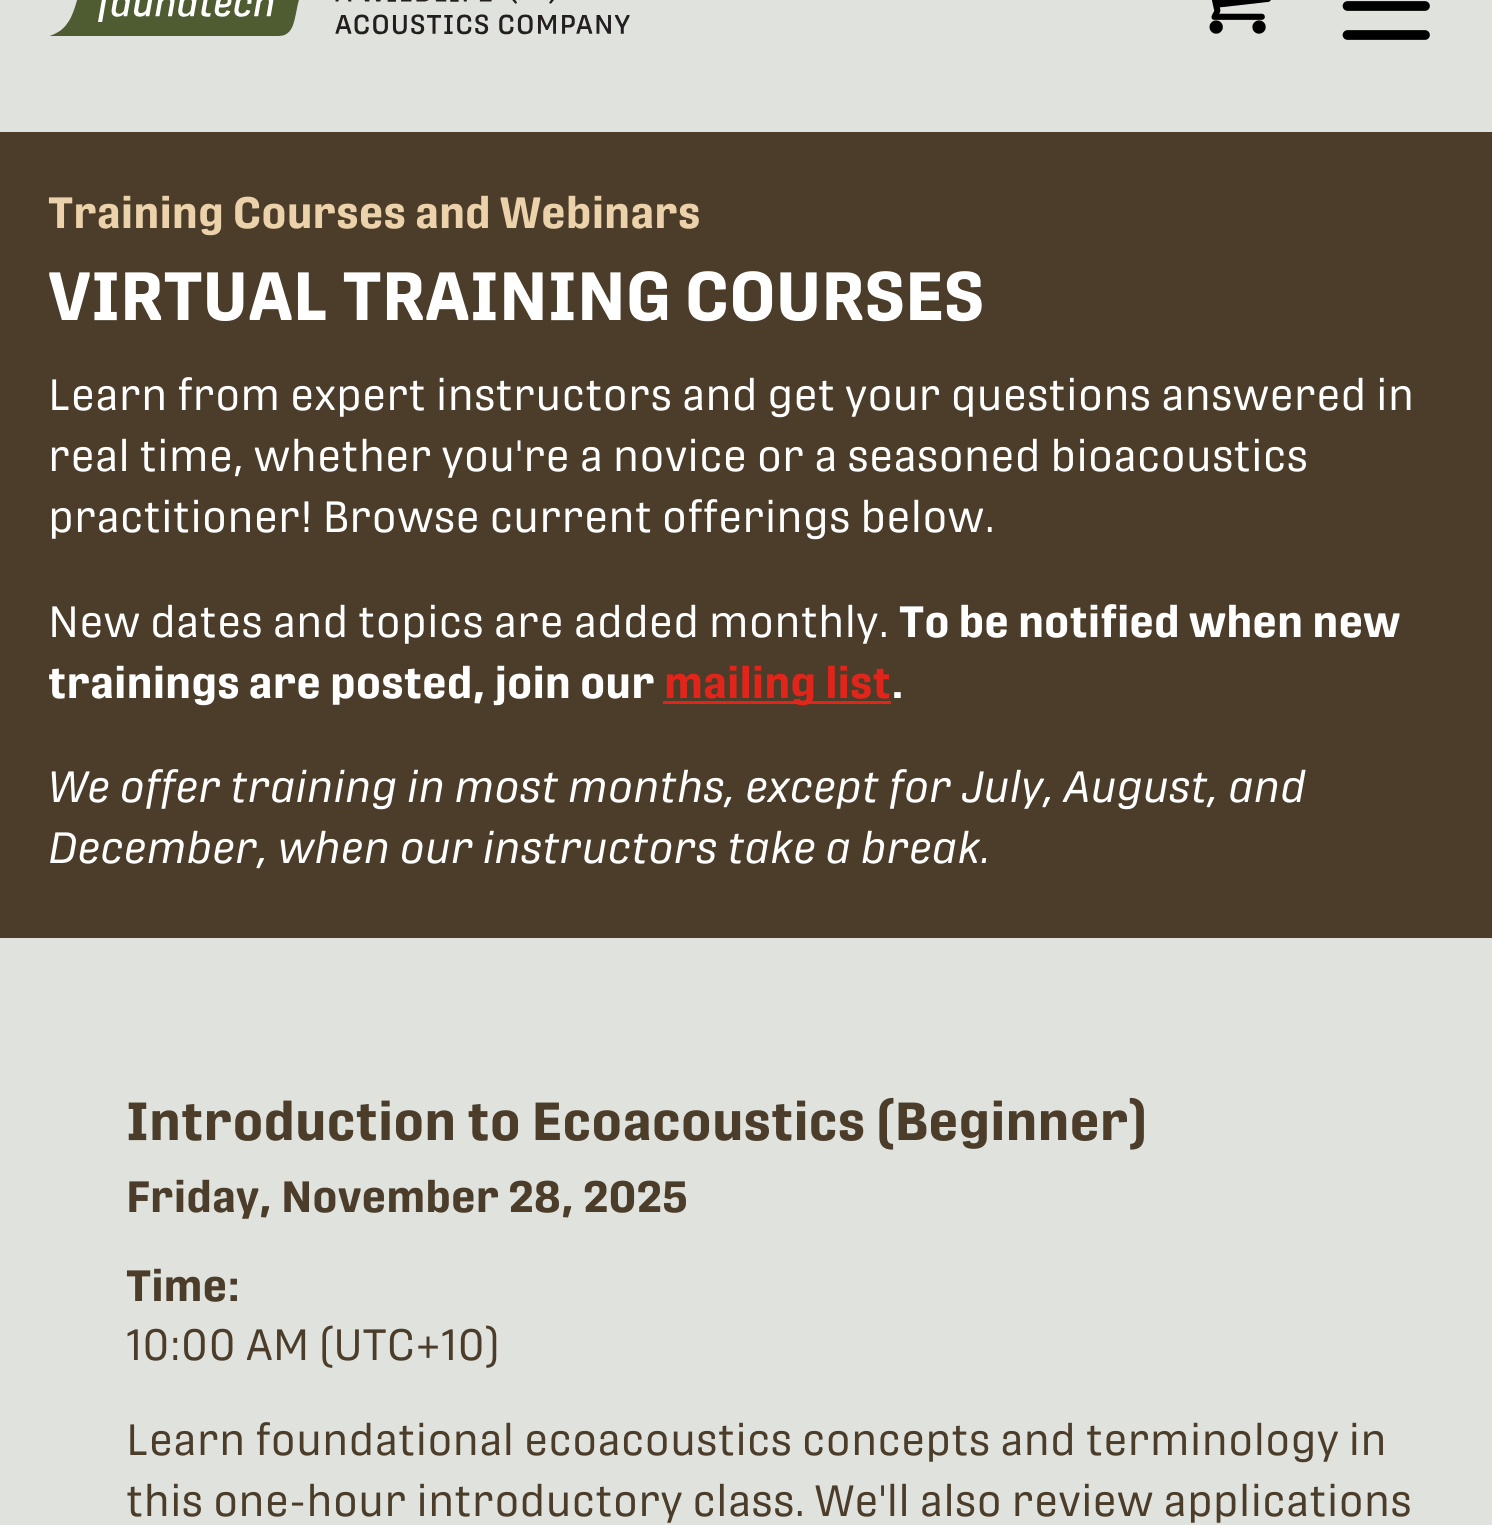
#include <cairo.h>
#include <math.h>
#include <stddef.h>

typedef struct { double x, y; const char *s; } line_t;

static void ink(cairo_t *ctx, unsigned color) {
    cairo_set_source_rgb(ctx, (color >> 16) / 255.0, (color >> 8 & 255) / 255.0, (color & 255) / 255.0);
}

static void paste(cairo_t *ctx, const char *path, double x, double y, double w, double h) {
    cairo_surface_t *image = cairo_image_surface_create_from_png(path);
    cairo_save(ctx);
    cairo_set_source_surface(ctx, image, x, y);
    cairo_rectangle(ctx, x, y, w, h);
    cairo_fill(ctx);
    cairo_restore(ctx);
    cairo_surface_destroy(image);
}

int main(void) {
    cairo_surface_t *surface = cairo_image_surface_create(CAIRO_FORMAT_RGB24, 1492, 1525);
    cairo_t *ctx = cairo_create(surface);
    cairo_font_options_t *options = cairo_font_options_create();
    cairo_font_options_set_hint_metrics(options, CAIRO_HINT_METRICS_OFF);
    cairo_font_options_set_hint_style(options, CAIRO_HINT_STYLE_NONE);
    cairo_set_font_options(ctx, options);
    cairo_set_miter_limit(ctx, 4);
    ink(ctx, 0xE0E2DD);
    cairo_paint(ctx);
    paste(ctx, "media/1.png", 50, 0, 580, 36);
    paste(ctx, "media/2.png", 1209, 0, 62, 34);
    cairo_new_path(ctx);
    cairo_move_to(ctx, 1347.5, -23);
    cairo_line_to(ctx, 1425, -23);
    cairo_move_to(ctx, 1347.5, 6);
    cairo_line_to(ctx, 1425, 6);
    cairo_move_to(ctx, 1347.5, 35);
    cairo_line_to(ctx, 1425, 35);
    ink(ctx, 0x000000);
    cairo_set_line_width(ctx, 9.7);
    cairo_set_line_cap(ctx, CAIRO_LINE_CAP_ROUND);
    cairo_set_line_join(ctx, CAIRO_LINE_JOIN_ROUND);
    cairo_stroke(ctx);
    ink(ctx, 0x4B3D2A);
    cairo_rectangle(ctx, 0, 132, 1492, 806);
    cairo_fill(ctx);
    cairo_select_font_face(ctx, "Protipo", CAIRO_FONT_SLANT_NORMAL, CAIRO_FONT_WEIGHT_BOLD);
    cairo_set_font_size(ctx, 43.55);
    ink(ctx, 0xECD2AB);
    cairo_move_to(ctx, 48, 228);
    cairo_show_text(ctx, "Training Courses and Webinars");
    cairo_set_font_size(ctx, 67.75);
    ink(ctx, 0xFFFFFF);
    cairo_move_to(ctx, 48, 320);
    cairo_show_text(ctx, "VIRTUAL TRAINING COURSES");
    cairo_select_font_face(ctx, "Protipo", CAIRO_FONT_SLANT_NORMAL, CAIRO_FONT_WEIGHT_NORMAL);
    cairo_set_font_size(ctx, 43.55);
    {
        static const line_t items[] = {
            {48, 410, "Learn from expert instructors and get your questions answered in"},
            {48, 471, "real time, whether you're a novice or a seasoned bioacoustics"},
            {48, 532, "practitioner! Browse current offerings below."},
            {48, 637, "New dates and topics are added monthly."},
        };
        for (size_t i = 0; i < sizeof items / sizeof *items; i++) {
            cairo_move_to(ctx, items[i].x, items[i].y);
            cairo_show_text(ctx, items[i].s);
        }
    }
    cairo_select_font_face(ctx, "Protipo", CAIRO_FONT_SLANT_NORMAL, CAIRO_FONT_WEIGHT_BOLD);
    cairo_move_to(ctx, 899, 637);
    cairo_show_text(ctx, "To be notified when new");
    cairo_move_to(ctx, 48, 698);
    cairo_show_text(ctx, "trainings are posted, join our");
    ink(ctx, 0xE1251B);
    cairo_rectangle(ctx, 663, 701, 228, 3);
    cairo_fill(ctx);
    cairo_move_to(ctx, 664, 698);
    cairo_show_text(ctx, "mailing list");
    ink(ctx, 0xFFFFFF);
    cairo_move_to(ctx, 891, 698);
    cairo_show_text(ctx, ".");
    cairo_select_font_face(ctx, "Protipo", CAIRO_FONT_SLANT_ITALIC, CAIRO_FONT_WEIGHT_NORMAL);
    cairo_move_to(ctx, 48, 802);
    cairo_show_text(ctx, "We offer training in most months, except for July, August, and");
    cairo_move_to(ctx, 48, 863);
    cairo_show_text(ctx, "December, when our instructors take a break.");
    cairo_select_font_face(ctx, "Protipo", CAIRO_FONT_SLANT_NORMAL, CAIRO_FONT_WEIGHT_BOLD);
    cairo_set_font_size(ctx, 53.25);
    ink(ctx, 0x4B3D2A);
    cairo_move_to(ctx, 126, 1140);
    cairo_show_text(ctx, "Introduction to Ecoacoustics (Beginner)");
    cairo_set_font_size(ctx, 43.55);
    cairo_move_to(ctx, 126, 1212);
    cairo_show_text(ctx, "Friday, November 28, 2025");
    cairo_move_to(ctx, 126, 1301);
    cairo_show_text(ctx, "Time:");
    cairo_select_font_face(ctx, "Protipo", CAIRO_FONT_SLANT_NORMAL, CAIRO_FONT_WEIGHT_NORMAL);
    {
        static const line_t items[] = {
            {126, 1360, "10:00 AM (UTC+10)"},
            {126, 1455, "Learn foundational ecoacoustics concepts and terminology in"},
            {126, 1516, "this one-hour introductory class. We'll also review applications"},
        };
        for (size_t i = 0; i < sizeof items / sizeof *items; i++) {
            cairo_move_to(ctx, items[i].x, items[i].y);
            cairo_show_text(ctx, items[i].s);
        }
    }
    cairo_surface_write_to_png(surface, "image.png");
    cairo_font_options_destroy(options);
    cairo_destroy(ctx);
    cairo_surface_destroy(surface);
    return 0;
}
